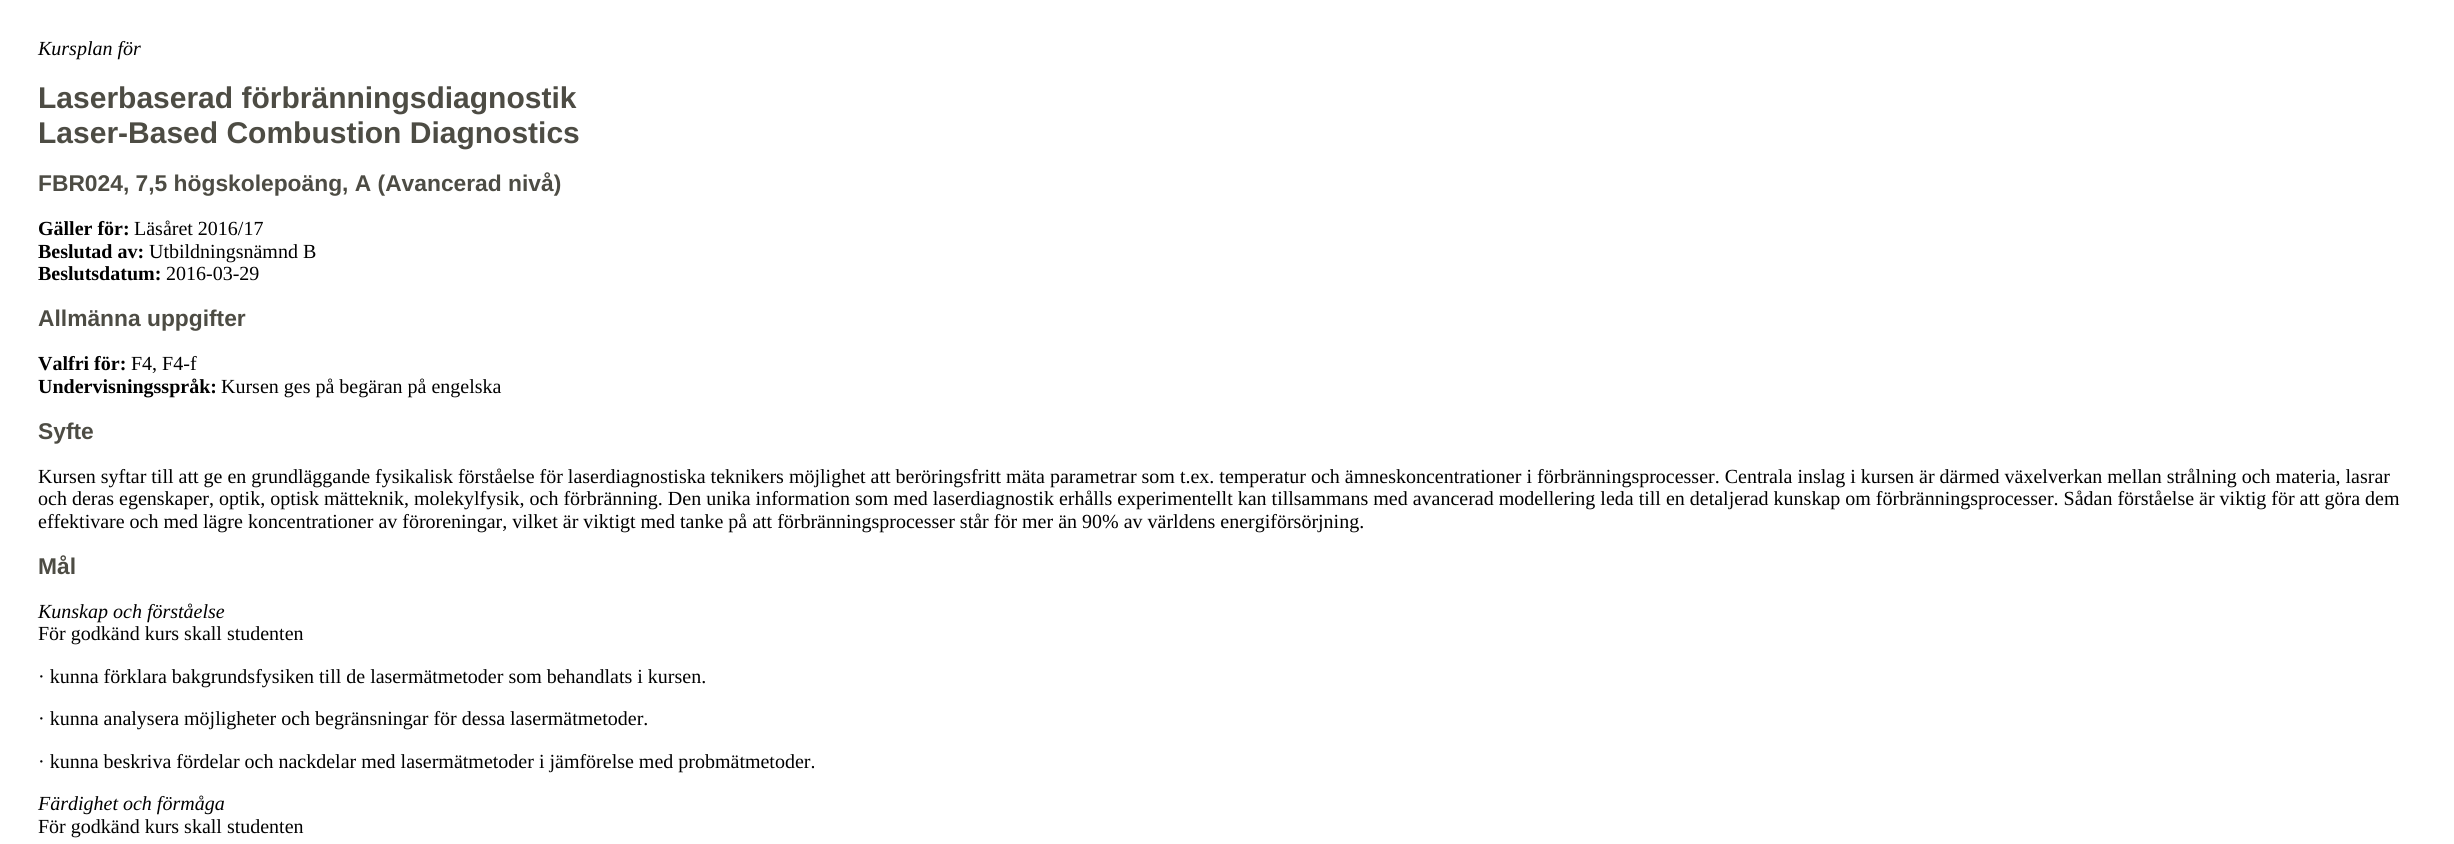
#include <cairo.h>
#include <math.h>
#include <stddef.h>

typedef struct { double x, y; const char *s; } line_t;

static void ink(cairo_t *ctx, unsigned color) {
    cairo_set_source_rgb(ctx, (color >> 16) / 255.0, (color >> 8 & 255) / 255.0, (color & 255) / 255.0);
}

int main(void) {
    cairo_surface_t *surface = cairo_image_surface_create(CAIRO_FORMAT_RGB24, 2454, 844);
    cairo_t *ctx = cairo_create(surface);
    cairo_font_options_t *options = cairo_font_options_create();
    cairo_font_options_set_hint_metrics(options, CAIRO_HINT_METRICS_OFF);
    cairo_font_options_set_hint_style(options, CAIRO_HINT_STYLE_NONE);
    cairo_set_font_options(ctx, options);
    cairo_set_miter_limit(ctx, 4);
    ink(ctx, 0xFFFFFF);
    cairo_paint(ctx);
    cairo_select_font_face(ctx, "Liberation Serif", CAIRO_FONT_SLANT_ITALIC, CAIRO_FONT_WEIGHT_NORMAL);
    cairo_set_font_size(ctx, 20);
    ink(ctx, 0x000000);
    cairo_move_to(ctx, 38, 55);
    cairo_show_text(ctx, "Kursplan för");
    cairo_select_font_face(ctx, "Liberation Sans", CAIRO_FONT_SLANT_NORMAL, CAIRO_FONT_WEIGHT_BOLD);
    cairo_set_font_size(ctx, 30);
    ink(ctx, 0x4D4C44);
    cairo_move_to(ctx, 38, 108);
    cairo_show_text(ctx, "Laserbaserad förbränningsdiagnostik");
    cairo_move_to(ctx, 38, 143);
    cairo_show_text(ctx, "Laser-Based Combustion Diagnostics");
    cairo_set_font_size(ctx, 22.8);
    cairo_move_to(ctx, 38, 191);
    cairo_show_text(ctx, "FBR024, 7,5 högskolepoäng, A (Avancerad nivå)");
    cairo_select_font_face(ctx, "Liberation Serif", CAIRO_FONT_SLANT_NORMAL, CAIRO_FONT_WEIGHT_BOLD);
    cairo_set_font_size(ctx, 20);
    ink(ctx, 0x000000);
    cairo_move_to(ctx, 38, 235);
    cairo_show_text(ctx, "Gäller för:");
    cairo_select_font_face(ctx, "Liberation Serif", CAIRO_FONT_SLANT_NORMAL, CAIRO_FONT_WEIGHT_NORMAL);
    cairo_move_to(ctx, 134, 235);
    cairo_show_text(ctx, "Läsåret 2016/17");
    cairo_select_font_face(ctx, "Liberation Serif", CAIRO_FONT_SLANT_NORMAL, CAIRO_FONT_WEIGHT_BOLD);
    cairo_move_to(ctx, 38, 258);
    cairo_show_text(ctx, "Beslutad av:");
    cairo_select_font_face(ctx, "Liberation Serif", CAIRO_FONT_SLANT_NORMAL, CAIRO_FONT_WEIGHT_NORMAL);
    cairo_move_to(ctx, 149, 258);
    cairo_show_text(ctx, "Utbildningsnämnd B");
    cairo_select_font_face(ctx, "Liberation Serif", CAIRO_FONT_SLANT_NORMAL, CAIRO_FONT_WEIGHT_BOLD);
    cairo_move_to(ctx, 38, 280);
    cairo_show_text(ctx, "Beslutsdatum:");
    cairo_select_font_face(ctx, "Liberation Serif", CAIRO_FONT_SLANT_NORMAL, CAIRO_FONT_WEIGHT_NORMAL);
    cairo_move_to(ctx, 166, 280);
    cairo_show_text(ctx, "2016-03-29");
    cairo_select_font_face(ctx, "Liberation Sans", CAIRO_FONT_SLANT_NORMAL, CAIRO_FONT_WEIGHT_BOLD);
    cairo_set_font_size(ctx, 22.8);
    ink(ctx, 0x4D4C44);
    cairo_move_to(ctx, 38, 326);
    cairo_show_text(ctx, "Allmänna uppgifter");
    cairo_select_font_face(ctx, "Liberation Serif", CAIRO_FONT_SLANT_NORMAL, CAIRO_FONT_WEIGHT_BOLD);
    cairo_set_font_size(ctx, 20);
    ink(ctx, 0x000000);
    cairo_move_to(ctx, 38, 370);
    cairo_show_text(ctx, "Valfri för:");
    cairo_select_font_face(ctx, "Liberation Serif", CAIRO_FONT_SLANT_NORMAL, CAIRO_FONT_WEIGHT_NORMAL);
    cairo_move_to(ctx, 131, 370);
    cairo_show_text(ctx, "F4, F4-f");
    cairo_select_font_face(ctx, "Liberation Serif", CAIRO_FONT_SLANT_NORMAL, CAIRO_FONT_WEIGHT_BOLD);
    cairo_move_to(ctx, 38, 393);
    cairo_show_text(ctx, "Undervisningsspråk:");
    cairo_select_font_face(ctx, "Liberation Serif", CAIRO_FONT_SLANT_NORMAL, CAIRO_FONT_WEIGHT_NORMAL);
    cairo_move_to(ctx, 221, 393);
    cairo_show_text(ctx, "Kursen ges på begäran på engelska");
    cairo_select_font_face(ctx, "Liberation Sans", CAIRO_FONT_SLANT_NORMAL, CAIRO_FONT_WEIGHT_BOLD);
    cairo_set_font_size(ctx, 22.8);
    ink(ctx, 0x4D4C44);
    cairo_move_to(ctx, 38, 439);
    cairo_show_text(ctx, "Syfte");
    cairo_select_font_face(ctx, "Liberation Serif", CAIRO_FONT_SLANT_NORMAL, CAIRO_FONT_WEIGHT_NORMAL);
    cairo_set_font_size(ctx, 20);
    ink(ctx, 0x000000);
    {
        static const line_t items[] = {
            {38, 483, "Kursen syftar till att ge en grundläggande fysikalisk förståelse för laserdiagnostiska teknikers möjlighet att beröringsfritt mäta parametrar som t.ex. temperatur och ämneskoncentrationer i förbränningsprocesser. Centrala inslag i kursen är därmed växelverkan mellan strålning och materia, lasrar"},
            {38, 505, "och deras egenskaper, optik, optisk mätteknik, molekylfysik, och förbränning. Den unika information som med laserdiagnostik erhålls experimentellt kan tillsammans med avancerad modellering leda till en detaljerad kunskap om förbränningsprocesser. Sådan förståelse är viktig för att göra dem"},
            {38, 528, "effektivare och med lägre koncentrationer av föroreningar, vilket är viktigt med tanke på att förbränningsprocesser står för mer än 90% av världens energiförsörjning."},
        };
        for (size_t i = 0; i < sizeof items / sizeof *items; i++) {
            cairo_move_to(ctx, items[i].x, items[i].y);
            cairo_show_text(ctx, items[i].s);
        }
    }
    cairo_select_font_face(ctx, "Liberation Sans", CAIRO_FONT_SLANT_NORMAL, CAIRO_FONT_WEIGHT_BOLD);
    cairo_set_font_size(ctx, 22.8);
    ink(ctx, 0x4D4C44);
    cairo_move_to(ctx, 38, 574);
    cairo_show_text(ctx, "Mål");
    cairo_select_font_face(ctx, "Liberation Serif", CAIRO_FONT_SLANT_ITALIC, CAIRO_FONT_WEIGHT_NORMAL);
    cairo_set_font_size(ctx, 20);
    ink(ctx, 0x000000);
    cairo_move_to(ctx, 38, 618);
    cairo_show_text(ctx, "Kunskap och förståelse");
    cairo_select_font_face(ctx, "Liberation Serif", CAIRO_FONT_SLANT_NORMAL, CAIRO_FONT_WEIGHT_NORMAL);
    {
        static const line_t items[] = {
            {38, 640, "För godkänd kurs skall studenten"},
            {38, 683, "· kunna förklara bakgrundsfysiken till de lasermätmetoder som behandlats i kursen."},
            {38, 725, "· kunna analysera möjligheter och begränsningar för dessa lasermätmetoder."},
            {38, 768, "· kunna beskriva fördelar och nackdelar med lasermätmetoder i jämförelse med probmätmetoder."},
        };
        for (size_t i = 0; i < sizeof items / sizeof *items; i++) {
            cairo_move_to(ctx, items[i].x, items[i].y);
            cairo_show_text(ctx, items[i].s);
        }
    }
    cairo_select_font_face(ctx, "Liberation Serif", CAIRO_FONT_SLANT_ITALIC, CAIRO_FONT_WEIGHT_NORMAL);
    cairo_move_to(ctx, 38, 810);
    cairo_show_text(ctx, "Färdighet och förmåga");
    cairo_select_font_face(ctx, "Liberation Serif", CAIRO_FONT_SLANT_NORMAL, CAIRO_FONT_WEIGHT_NORMAL);
    cairo_move_to(ctx, 38, 833);
    cairo_show_text(ctx, "För godkänd kurs skall studenten");
    cairo_surface_write_to_png(surface, "image.png");
    cairo_font_options_destroy(options);
    cairo_destroy(ctx);
    cairo_surface_destroy(surface);
    return 0;
}
